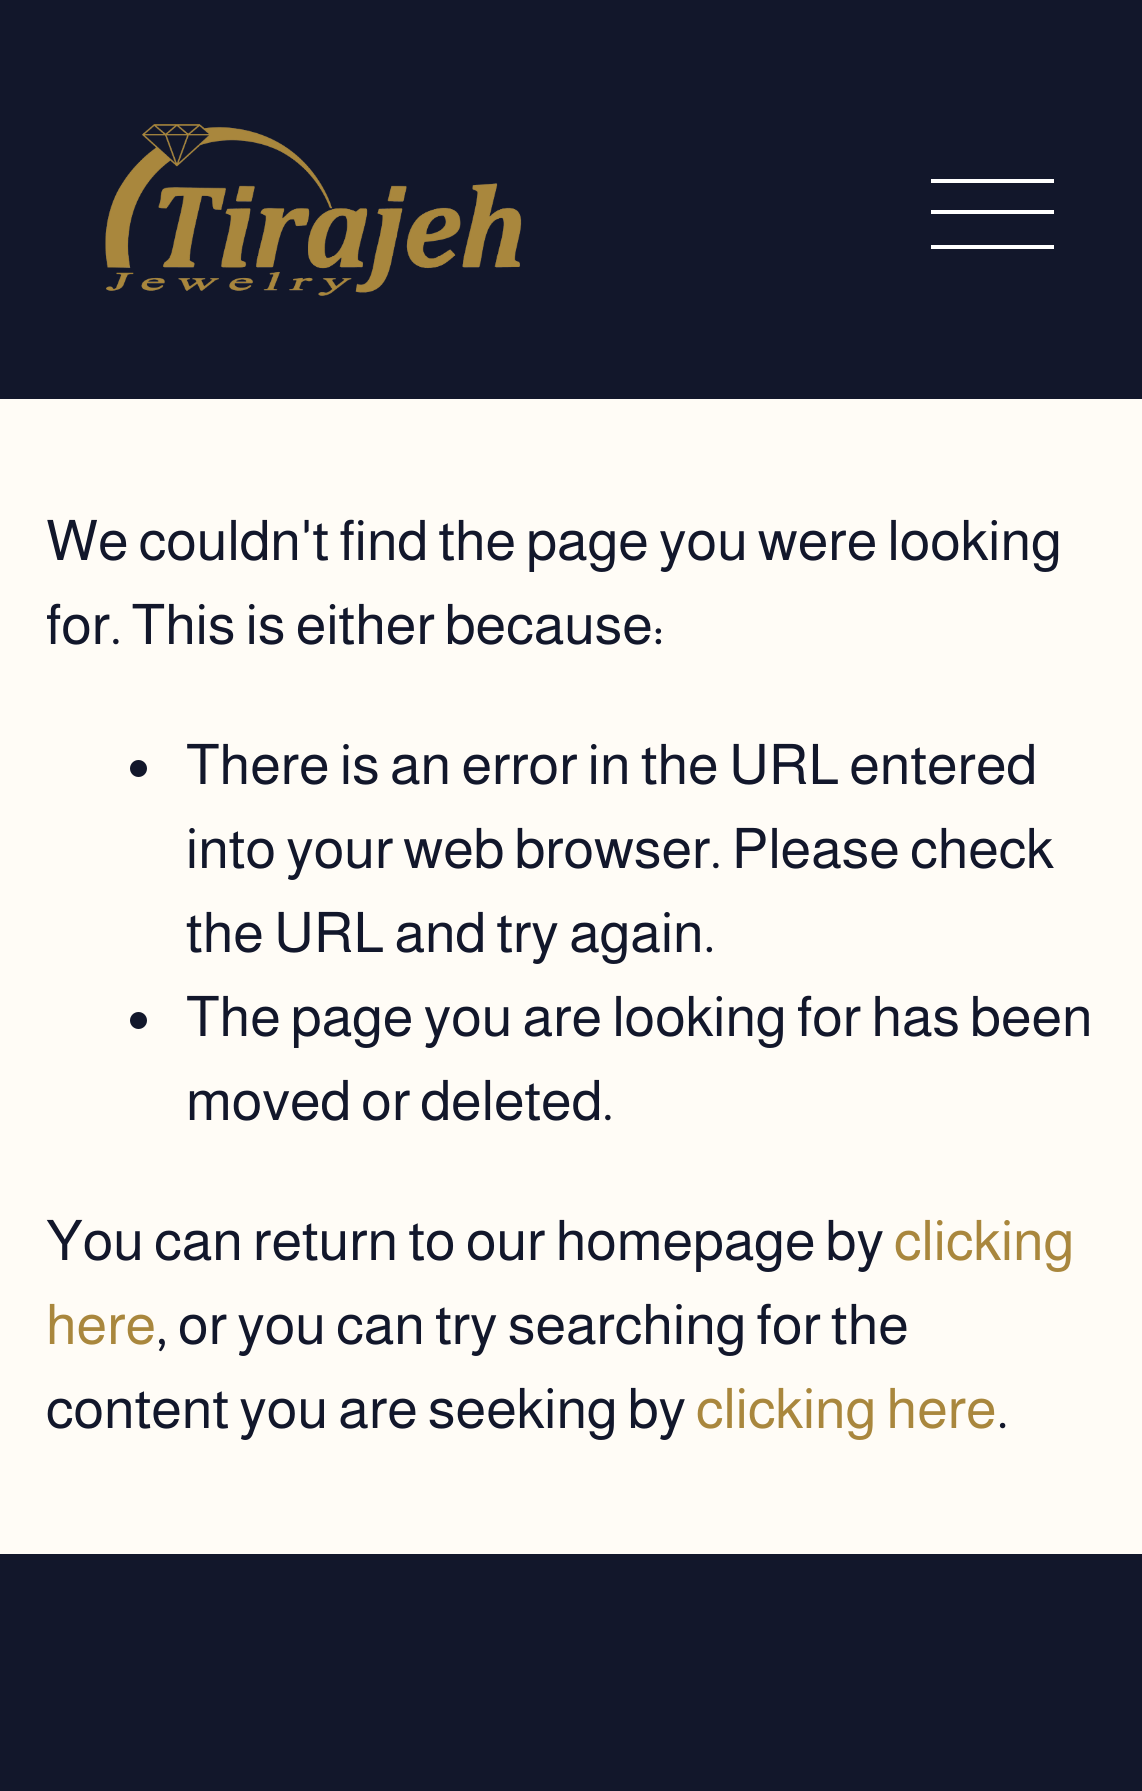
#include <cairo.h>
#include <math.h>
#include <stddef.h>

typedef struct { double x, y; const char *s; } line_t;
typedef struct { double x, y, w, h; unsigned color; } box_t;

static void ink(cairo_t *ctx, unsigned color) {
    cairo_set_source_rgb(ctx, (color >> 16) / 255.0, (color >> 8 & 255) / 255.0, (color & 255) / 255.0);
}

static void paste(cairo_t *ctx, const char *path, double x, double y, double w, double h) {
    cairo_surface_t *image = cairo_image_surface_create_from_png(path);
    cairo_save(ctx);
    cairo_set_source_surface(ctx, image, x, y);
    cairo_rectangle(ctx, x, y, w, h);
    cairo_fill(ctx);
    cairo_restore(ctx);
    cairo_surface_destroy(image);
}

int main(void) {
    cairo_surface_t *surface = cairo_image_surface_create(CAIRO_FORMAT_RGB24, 1142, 1791);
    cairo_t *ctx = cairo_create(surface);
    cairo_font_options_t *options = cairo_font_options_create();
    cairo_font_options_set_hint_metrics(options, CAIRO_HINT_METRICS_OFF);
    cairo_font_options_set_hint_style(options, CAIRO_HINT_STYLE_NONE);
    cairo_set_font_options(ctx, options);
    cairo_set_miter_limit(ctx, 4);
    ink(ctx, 0xFFFCF6);
    cairo_paint(ctx);
    ink(ctx, 0x12172B);
    cairo_rectangle(ctx, 0, 0, 1142, 399);
    cairo_fill(ctx);
    paste(ctx, "media/1.png", 105, 124, 417, 172);
    {
        static const box_t items[] = {
            {931, 179, 123, 4, 0xFFFFFF},
            {931, 210, 123, 4, 0xFFFFFF},
            {931, 245, 123, 4, 0xFFFFFF},
        };
        for (size_t i = 0; i < sizeof items / sizeof *items; i++) {
            ink(ctx, items[i].color);
            cairo_rectangle(ctx, items[i].x, items[i].y, items[i].w, items[i].h);
            cairo_fill(ctx);
        }
    }
    cairo_select_font_face(ctx, "Almarai", CAIRO_FONT_SLANT_NORMAL, CAIRO_FONT_WEIGHT_NORMAL);
    cairo_set_font_size(ctx, 56);
    ink(ctx, 0x12172B);
    cairo_move_to(ctx, 46, 560);
    cairo_show_text(ctx, "We couldn't find the page you were looking");
    cairo_move_to(ctx, 46, 644);
    cairo_show_text(ctx, "for. This is either because:");
    cairo_new_path(ctx);
    cairo_arc(ctx, 138.5, 768.5, 8.5, 0, 2 * M_PI);
    cairo_fill(ctx);
    {
        static const line_t items[] = {
            {186, 784, "There is an error in the URL entered"},
            {186, 868, "into your web browser. Please check"},
            {186, 952, "the URL and try again."},
        };
        for (size_t i = 0; i < sizeof items / sizeof *items; i++) {
            cairo_move_to(ctx, items[i].x, items[i].y);
            cairo_show_text(ctx, items[i].s);
        }
    }
    cairo_new_path(ctx);
    cairo_arc(ctx, 138.5, 1020.5, 8.5, 0, 2 * M_PI);
    cairo_fill(ctx);
    {
        static const line_t items[] = {
            {186, 1036, "The page you are looking for has been"},
            {186, 1120, "moved or deleted."},
            {46, 1260, "You can return to our homepage by"},
        };
        for (size_t i = 0; i < sizeof items / sizeof *items; i++) {
            cairo_move_to(ctx, items[i].x, items[i].y);
            cairo_show_text(ctx, items[i].s);
        }
    }
    ink(ctx, 0xA9873D);
    cairo_move_to(ctx, 894, 1260);
    cairo_show_text(ctx, "clicking");
    cairo_move_to(ctx, 46, 1344);
    cairo_show_text(ctx, "here");
    ink(ctx, 0x12172B);
    cairo_move_to(ctx, 156, 1344);
    cairo_show_text(ctx, ", or you can try searching for the");
    cairo_move_to(ctx, 46, 1428);
    cairo_show_text(ctx, "content you are seeking by");
    ink(ctx, 0xA9873D);
    cairo_move_to(ctx, 696, 1428);
    cairo_show_text(ctx, "clicking here");
    ink(ctx, 0x12172B);
    cairo_move_to(ctx, 997, 1428);
    cairo_show_text(ctx, ".");
    cairo_rectangle(ctx, 0, 1554, 1142, 237);
    cairo_fill(ctx);
    cairo_surface_write_to_png(surface, "image.png");
    cairo_font_options_destroy(options);
    cairo_destroy(ctx);
    cairo_surface_destroy(surface);
    return 0;
}
